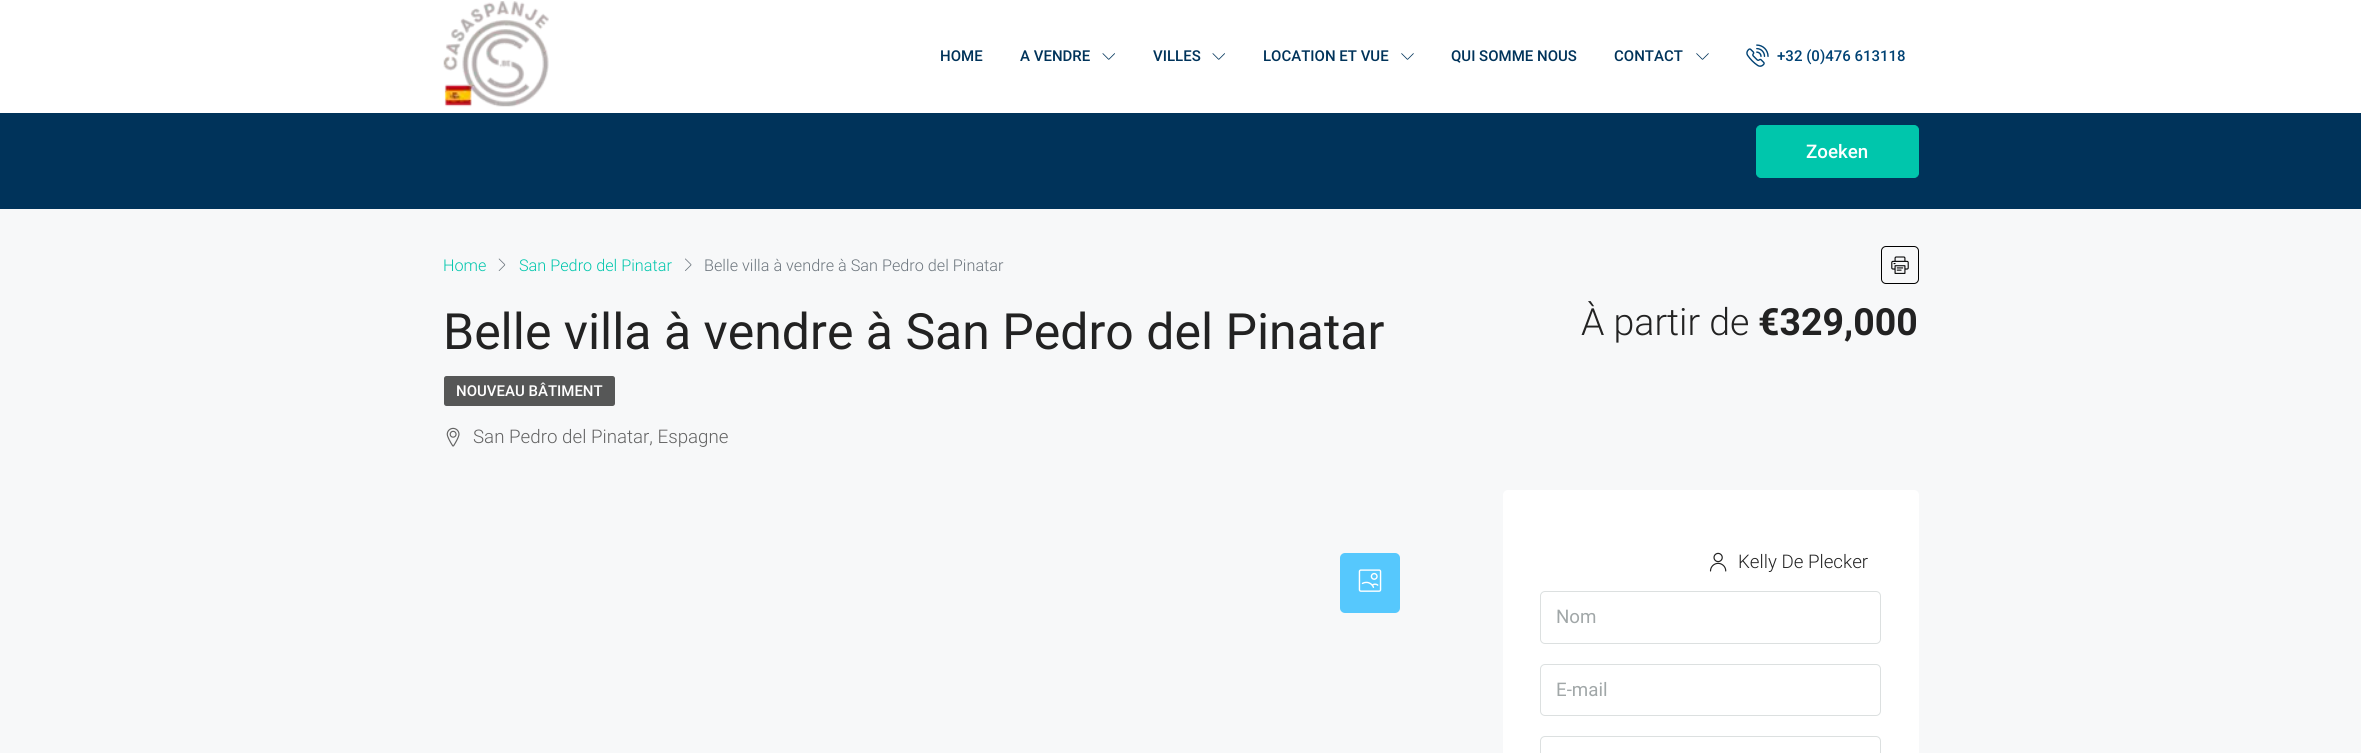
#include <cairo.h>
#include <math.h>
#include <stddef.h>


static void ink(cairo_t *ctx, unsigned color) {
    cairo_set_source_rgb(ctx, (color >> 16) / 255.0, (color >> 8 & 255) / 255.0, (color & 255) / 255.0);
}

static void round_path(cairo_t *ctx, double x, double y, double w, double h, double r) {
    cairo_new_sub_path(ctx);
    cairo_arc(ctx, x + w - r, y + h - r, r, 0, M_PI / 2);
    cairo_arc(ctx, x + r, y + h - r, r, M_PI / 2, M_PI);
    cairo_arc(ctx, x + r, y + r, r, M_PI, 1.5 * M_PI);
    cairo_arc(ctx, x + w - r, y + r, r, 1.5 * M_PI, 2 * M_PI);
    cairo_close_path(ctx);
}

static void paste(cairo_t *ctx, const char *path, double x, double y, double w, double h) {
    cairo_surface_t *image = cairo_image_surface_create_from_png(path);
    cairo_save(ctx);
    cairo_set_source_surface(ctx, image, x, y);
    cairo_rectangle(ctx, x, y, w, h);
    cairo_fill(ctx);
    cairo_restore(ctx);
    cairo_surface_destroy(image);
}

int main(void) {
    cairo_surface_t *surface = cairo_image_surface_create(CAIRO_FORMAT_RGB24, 2361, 753);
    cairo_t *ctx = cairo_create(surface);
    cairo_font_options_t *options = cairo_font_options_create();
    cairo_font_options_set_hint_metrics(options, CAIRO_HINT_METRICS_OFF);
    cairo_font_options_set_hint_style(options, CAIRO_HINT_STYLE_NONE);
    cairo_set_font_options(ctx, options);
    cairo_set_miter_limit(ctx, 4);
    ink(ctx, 0xF7F8F9);
    cairo_paint(ctx);
    ink(ctx, 0xFFFFFF);
    cairo_rectangle(ctx, 0, 0, 2361, 113);
    cairo_fill(ctx);
    paste(ctx, "media/1.png", 443, 1, 106, 106);
    cairo_select_font_face(ctx, "Roboto Medium", CAIRO_FONT_SLANT_NORMAL, CAIRO_FONT_WEIGHT_NORMAL);
    cairo_set_font_size(ctx, 15);
    ink(ctx, 0x00335A);
    cairo_move_to(ctx, 940, 61);
    cairo_show_text(ctx, "HOME");
    cairo_move_to(ctx, 1020, 61);
    cairo_show_text(ctx, "A VENDRE");
    paste(ctx, "media/2.png", 1102, 53, 13, 7);
    cairo_move_to(ctx, 1153, 61);
    cairo_show_text(ctx, "VILLES");
    paste(ctx, "media/2.png", 1212, 53, 13, 7);
    cairo_move_to(ctx, 1263, 61);
    cairo_show_text(ctx, "LOCATION ET VUE");
    paste(ctx, "media/3.png", 1401, 53, 13, 7);
    cairo_move_to(ctx, 1451, 61);
    cairo_show_text(ctx, "QUI SOMME NOUS");
    cairo_move_to(ctx, 1614, 61);
    cairo_show_text(ctx, "CONTACT");
    paste(ctx, "media/3.png", 1696, 53, 13, 7);
    paste(ctx, "media/4.png", 1746, 44, 23, 23);
    ink(ctx, 0x004274);
    cairo_move_to(ctx, 1777, 61);
    cairo_show_text(ctx, "+32 (0)476 613118");
    ink(ctx, 0x00335A);
    cairo_rectangle(ctx, 0, 113, 2361, 96);
    cairo_fill(ctx);
    ink(ctx, 0x00C6AC);
    round_path(ctx, 1756.5, 125.5, 162, 52, 4.5);
    cairo_fill_preserve(ctx);
    cairo_set_line_width(ctx, 1);
    cairo_stroke(ctx);
    cairo_set_font_size(ctx, 18.75);
    ink(ctx, 0xFFFFFF);
    cairo_move_to(ctx, 1806, 158);
    cairo_show_text(ctx, "Zoeken");
    cairo_select_font_face(ctx, "Roboto Light", CAIRO_FONT_SLANT_NORMAL, CAIRO_FONT_WEIGHT_NORMAL);
    cairo_set_font_size(ctx, 16.25);
    ink(ctx, 0x00C6AC);
    cairo_move_to(ctx, 443, 271);
    cairo_show_text(ctx, "Home");
    paste(ctx, "media/5.png", 498, 258, 8, 13);
    cairo_move_to(ctx, 519, 271);
    cairo_show_text(ctx, "San Pedro del Pinatar");
    paste(ctx, "media/6.png", 685, 258, 7, 13);
    ink(ctx, 0x6C757D);
    cairo_move_to(ctx, 704, 271);
    cairo_show_text(ctx, "Belle villa à vendre à San Pedro del Pinatar");
    round_path(ctx, 1881.5, 246.5, 37, 37, 4.5);
    ink(ctx, 0x000000);
    cairo_stroke(ctx);
    paste(ctx, "media/7.png", 1891, 256, 18, 18);
    cairo_select_font_face(ctx, "Roboto", CAIRO_FONT_SLANT_NORMAL, CAIRO_FONT_WEIGHT_NORMAL);
    cairo_set_font_size(ctx, 50);
    ink(ctx, 0x222222);
    cairo_move_to(ctx, 443, 349);
    cairo_show_text(ctx, "Belle villa à vendre à San Pedro del Pinatar");
    cairo_select_font_face(ctx, "Roboto Light", CAIRO_FONT_SLANT_NORMAL, CAIRO_FONT_WEIGHT_NORMAL);
    cairo_set_font_size(ctx, 37.5);
    cairo_move_to(ctx, 1581, 335);
    cairo_show_text(ctx, "À partir de");
    cairo_select_font_face(ctx, "Roboto", CAIRO_FONT_SLANT_NORMAL, CAIRO_FONT_WEIGHT_BOLD);
    cairo_move_to(ctx, 1758, 335);
    cairo_show_text(ctx, "€329,000");
    ink(ctx, 0x565757);
    round_path(ctx, 444, 376, 171, 30, 2.5);
    cairo_fill(ctx);
    cairo_select_font_face(ctx, "Roboto Medium", CAIRO_FONT_SLANT_NORMAL, CAIRO_FONT_WEIGHT_NORMAL);
    cairo_set_font_size(ctx, 15);
    ink(ctx, 0xFFFFFF);
    cairo_move_to(ctx, 456, 396);
    cairo_show_text(ctx, "NOUVEAU BÂTIMENT");
    paste(ctx, "media/8.png", 446, 427, 14, 20);
    cairo_select_font_face(ctx, "Roboto Light", CAIRO_FONT_SLANT_NORMAL, CAIRO_FONT_WEIGHT_NORMAL);
    cairo_set_font_size(ctx, 18.75);
    ink(ctx, 0x636363);
    cairo_move_to(ctx, 473, 443);
    cairo_show_text(ctx, "San Pedro del Pinatar, Espagne");
    ink(ctx, 0x56C8FD);
    round_path(ctx, 1340, 553, 60, 60, 5);
    cairo_fill(ctx);
    paste(ctx, "media/9.png", 1358, 569, 24, 23);
    ink(ctx, 0xFFFFFF);
    round_path(ctx, 1503, 490, 416, 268, 5);
    cairo_fill(ctx);
    paste(ctx, "media/10.png", 1709, 552, 18, 20);
    ink(ctx, 0x222222);
    cairo_move_to(ctx, 1738, 568);
    cairo_show_text(ctx, "Kelly De Plecker");
    round_path(ctx, 1540.5, 591.5, 340, 52, 4.5);
    ink(ctx, 0xDCE0E0);
    cairo_stroke(ctx);
    cairo_select_font_face(ctx, "Roboto", CAIRO_FONT_SLANT_NORMAL, CAIRO_FONT_WEIGHT_NORMAL);
    ink(ctx, 0xA1A7A8);
    cairo_move_to(ctx, 1556, 623);
    cairo_show_text(ctx, "Nom");
    round_path(ctx, 1540.5, 664.5, 340, 51, 4.5);
    ink(ctx, 0xDCE0E0);
    cairo_stroke(ctx);
    ink(ctx, 0xA1A7A8);
    cairo_move_to(ctx, 1556, 696);
    cairo_show_text(ctx, "E-mail");
    round_path(ctx, 1540.5, 736.5, 340, 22, 4.5);
    ink(ctx, 0xDCE0E0);
    cairo_stroke(ctx);
    cairo_surface_write_to_png(surface, "image.png");
    cairo_font_options_destroy(options);
    cairo_destroy(ctx);
    cairo_surface_destroy(surface);
    return 0;
}
